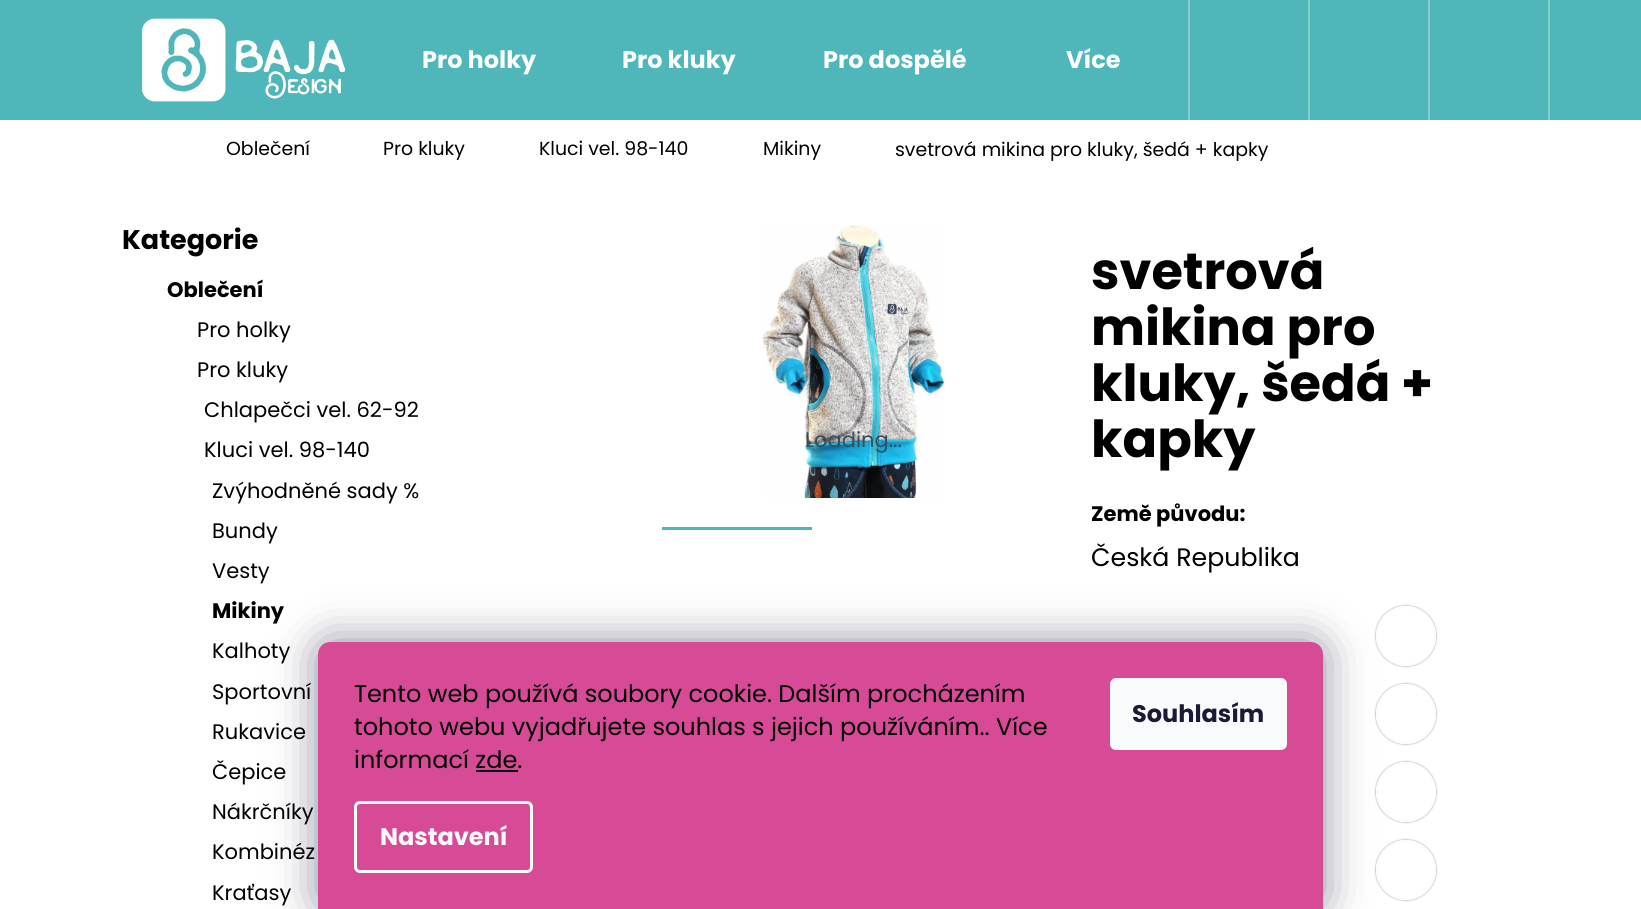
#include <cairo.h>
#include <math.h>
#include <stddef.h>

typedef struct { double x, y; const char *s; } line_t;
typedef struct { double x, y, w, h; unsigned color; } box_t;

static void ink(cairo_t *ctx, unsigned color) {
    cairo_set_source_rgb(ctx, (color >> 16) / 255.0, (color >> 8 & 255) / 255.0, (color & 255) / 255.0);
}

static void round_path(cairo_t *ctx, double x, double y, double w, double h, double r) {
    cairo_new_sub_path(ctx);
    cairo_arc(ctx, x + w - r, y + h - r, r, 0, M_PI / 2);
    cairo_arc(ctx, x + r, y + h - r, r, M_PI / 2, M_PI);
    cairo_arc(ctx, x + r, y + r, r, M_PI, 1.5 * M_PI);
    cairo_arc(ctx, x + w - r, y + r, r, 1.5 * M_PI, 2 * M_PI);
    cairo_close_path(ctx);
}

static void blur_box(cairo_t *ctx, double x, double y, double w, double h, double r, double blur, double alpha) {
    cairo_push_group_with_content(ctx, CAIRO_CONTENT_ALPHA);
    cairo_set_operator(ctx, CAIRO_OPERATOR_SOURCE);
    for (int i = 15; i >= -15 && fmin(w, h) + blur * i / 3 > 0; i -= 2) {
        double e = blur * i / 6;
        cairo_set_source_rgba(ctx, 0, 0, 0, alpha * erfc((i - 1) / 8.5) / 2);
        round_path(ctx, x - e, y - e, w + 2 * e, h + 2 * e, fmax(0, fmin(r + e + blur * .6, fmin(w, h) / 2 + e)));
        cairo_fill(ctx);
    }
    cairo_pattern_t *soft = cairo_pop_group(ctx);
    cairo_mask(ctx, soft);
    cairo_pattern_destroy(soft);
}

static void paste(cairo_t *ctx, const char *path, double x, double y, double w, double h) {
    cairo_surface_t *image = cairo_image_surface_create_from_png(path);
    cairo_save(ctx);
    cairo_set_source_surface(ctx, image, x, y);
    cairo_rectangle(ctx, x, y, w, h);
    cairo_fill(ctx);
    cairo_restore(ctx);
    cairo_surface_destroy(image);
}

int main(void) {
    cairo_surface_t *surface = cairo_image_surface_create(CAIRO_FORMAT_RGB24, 1641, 909);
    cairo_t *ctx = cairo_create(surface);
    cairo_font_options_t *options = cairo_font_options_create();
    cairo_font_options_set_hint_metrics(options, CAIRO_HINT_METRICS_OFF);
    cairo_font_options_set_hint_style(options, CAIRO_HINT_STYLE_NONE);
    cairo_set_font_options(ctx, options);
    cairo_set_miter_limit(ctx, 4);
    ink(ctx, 0xFFFFFF);
    cairo_paint(ctx);
    ink(ctx, 0x4FB7B9);
    cairo_rectangle(ctx, 0, 0, 1641, 120);
    cairo_fill(ctx);
    paste(ctx, "media/1.png", 140, 18, 209, 84);
    cairo_select_font_face(ctx, "Poppins", CAIRO_FONT_SLANT_NORMAL, CAIRO_FONT_WEIGHT_BOLD);
    cairo_set_font_size(ctx, 24);
    ink(ctx, 0xFFFFFF);
    {
        static const line_t items[] = {
            {422, 68, "Pro holky"},
            {622, 68, "Pro kluky"},
            {823, 68, "Pro dospělé"},
            {1066, 68, "Více"},
        };
        for (size_t i = 0; i < sizeof items / sizeof *items; i++) {
            cairo_move_to(ctx, items[i].x, items[i].y);
            cairo_show_text(ctx, items[i].s);
        }
    }
    {
        static const box_t items[] = {
            {1548, 0, 2, 120, 0x84CDCE},
            {1188, 0, 2, 120, 0x84CDCE},
            {1308, 0, 2, 120, 0x84CDCE},
            {1428, 0, 2, 120, 0x84CDCE},
        };
        for (size_t i = 0; i < sizeof items / sizeof *items; i++) {
            ink(ctx, items[i].color);
            cairo_rectangle(ctx, items[i].x, items[i].y, items[i].w, items[i].h);
            cairo_fill(ctx);
        }
    }
    cairo_select_font_face(ctx, "Poppins", CAIRO_FONT_SLANT_NORMAL, CAIRO_FONT_WEIGHT_NORMAL);
    cairo_set_font_size(ctx, 18.9);
    ink(ctx, 0x000000);
    {
        static const line_t items[] = {
            {226, 155, "Oblečení"},
            {383, 155, "Pro kluky"},
            {539, 155, "Kluci vel. 98-140"},
            {763, 155, "Mikiny"},
            {895, 156, "svetrová mikina pro kluky, šedá + kapky"},
        };
        for (size_t i = 0; i < sizeof items / sizeof *items; i++) {
            cairo_move_to(ctx, items[i].x, items[i].y);
            cairo_show_text(ctx, items[i].s);
        }
    }
    cairo_select_font_face(ctx, "Poppins", CAIRO_FONT_SLANT_NORMAL, CAIRO_FONT_WEIGHT_BOLD);
    cairo_set_font_size(ctx, 27);
    cairo_move_to(ctx, 122, 249);
    cairo_show_text(ctx, "Kategorie");
    cairo_set_font_size(ctx, 21);
    cairo_move_to(ctx, 167, 297);
    cairo_show_text(ctx, "Oblečení");
    cairo_select_font_face(ctx, "Poppins", CAIRO_FONT_SLANT_NORMAL, CAIRO_FONT_WEIGHT_NORMAL);
    {
        static const line_t items[] = {
            {197, 337, "Pro holky"},
            {197, 377, "Pro kluky"},
            {204, 417, "Chlapečci vel. 62-92"},
            {204, 457, "Kluci vel. 98-140"},
            {212, 498, "Zvýhodněné sady %"},
            {212, 538, "Bundy"},
            {212, 578, "Vesty"},
        };
        for (size_t i = 0; i < sizeof items / sizeof *items; i++) {
            cairo_move_to(ctx, items[i].x, items[i].y);
            cairo_show_text(ctx, items[i].s);
        }
    }
    cairo_select_font_face(ctx, "Poppins", CAIRO_FONT_SLANT_NORMAL, CAIRO_FONT_WEIGHT_BOLD);
    cairo_move_to(ctx, 212, 618);
    cairo_show_text(ctx, "Mikiny");
    cairo_select_font_face(ctx, "Poppins", CAIRO_FONT_SLANT_NORMAL, CAIRO_FONT_WEIGHT_NORMAL);
    {
        static const line_t items[] = {
            {212, 658, "Kalhoty"},
            {212, 699, "Sportovní"},
            {212, 739, "Rukavice"},
            {212, 779, "Čepice"},
            {212, 819, "Nákrčníky"},
            {212, 859, "Kombinéz"},
            {212, 900, "Kraťasy"},
        };
        for (size_t i = 0; i < sizeof items / sizeof *items; i++) {
            cairo_move_to(ctx, items[i].x, items[i].y);
            cairo_show_text(ctx, items[i].s);
        }
    }
    paste(ctx, "media/2.png", 762, 225, 183, 273);
    ink(ctx, 0x32515B);
    cairo_move_to(ctx, 805, 447);
    cairo_show_text(ctx, "Loading...");
    ink(ctx, 0x4FB7B9);
    cairo_rectangle(ctx, 662, 527, 150, 3);
    cairo_fill(ctx);
    cairo_select_font_face(ctx, "Poppins", CAIRO_FONT_SLANT_NORMAL, CAIRO_FONT_WEIGHT_BOLD);
    cairo_set_font_size(ctx, 51);
    ink(ctx, 0x000000);
    {
        static const line_t items[] = {
            {1091, 289, "svetrová"},
            {1091, 345, "mikina pro"},
            {1091, 401, "kluky, šedá +"},
            {1091, 457, "kapky"},
        };
        for (size_t i = 0; i < sizeof items / sizeof *items; i++) {
            cairo_move_to(ctx, items[i].x, items[i].y);
            cairo_show_text(ctx, items[i].s);
        }
    }
    cairo_set_font_size(ctx, 21);
    cairo_move_to(ctx, 1091, 521);
    cairo_show_text(ctx, "Země původu:");
    cairo_select_font_face(ctx, "Poppins", CAIRO_FONT_SLANT_NORMAL, CAIRO_FONT_WEIGHT_NORMAL);
    cairo_set_font_size(ctx, 25.25);
    cairo_move_to(ctx, 1091, 566);
    cairo_show_text(ctx, "Česká Republika");
    cairo_save(ctx);
    cairo_set_fill_rule(ctx, CAIRO_FILL_RULE_EVEN_ODD);
    cairo_new_path(ctx);
    cairo_move_to(ctx, 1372, 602);
    cairo_line_to(ctx, 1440, 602);
    cairo_line_to(ctx, 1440, 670);
    cairo_line_to(ctx, 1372, 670);
    cairo_close_path(ctx);
    cairo_move_to(ctx, 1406, 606);
    cairo_curve_to(ctx, 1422.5, 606, 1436, 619.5, 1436, 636);
    cairo_curve_to(ctx, 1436, 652.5, 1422.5, 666, 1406, 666);
    cairo_curve_to(ctx, 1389.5, 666, 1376, 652.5, 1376, 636);
    cairo_curve_to(ctx, 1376, 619.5, 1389.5, 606, 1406, 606);
    cairo_close_path(ctx);
    cairo_clip(ctx);
    ink(ctx, 0x000000);
    blur_box(ctx, 1376, 606, 60, 60, 30, 1, 0.5);
    cairo_restore(ctx);
    cairo_arc(ctx, 1406, 636, 29, 0, 2 * M_PI);
    ink(ctx, 0xFCFCFC);
    cairo_stroke(ctx);
    cairo_save(ctx);
    cairo_set_fill_rule(ctx, CAIRO_FILL_RULE_EVEN_ODD);
    cairo_new_path(ctx);
    cairo_move_to(ctx, 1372, 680);
    cairo_line_to(ctx, 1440, 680);
    cairo_line_to(ctx, 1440, 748);
    cairo_line_to(ctx, 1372, 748);
    cairo_close_path(ctx);
    cairo_move_to(ctx, 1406, 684);
    cairo_curve_to(ctx, 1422.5, 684, 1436, 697.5, 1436, 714);
    cairo_curve_to(ctx, 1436, 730.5, 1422.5, 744, 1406, 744);
    cairo_curve_to(ctx, 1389.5, 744, 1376, 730.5, 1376, 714);
    cairo_curve_to(ctx, 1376, 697.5, 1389.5, 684, 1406, 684);
    cairo_close_path(ctx);
    cairo_clip(ctx);
    ink(ctx, 0x000000);
    blur_box(ctx, 1376, 684, 60, 60, 30, 1, 0.5);
    cairo_restore(ctx);
    cairo_arc(ctx, 1406, 714, 29, 0, 2 * M_PI);
    cairo_stroke(ctx);
    cairo_save(ctx);
    cairo_set_fill_rule(ctx, CAIRO_FILL_RULE_EVEN_ODD);
    cairo_new_path(ctx);
    cairo_move_to(ctx, 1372, 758);
    cairo_line_to(ctx, 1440, 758);
    cairo_line_to(ctx, 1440, 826);
    cairo_line_to(ctx, 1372, 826);
    cairo_close_path(ctx);
    cairo_move_to(ctx, 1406, 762);
    cairo_curve_to(ctx, 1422.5, 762, 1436, 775.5, 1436, 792);
    cairo_curve_to(ctx, 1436, 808.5, 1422.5, 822, 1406, 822);
    cairo_curve_to(ctx, 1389.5, 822, 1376, 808.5, 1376, 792);
    cairo_curve_to(ctx, 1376, 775.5, 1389.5, 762, 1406, 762);
    cairo_close_path(ctx);
    cairo_clip(ctx);
    ink(ctx, 0x000000);
    blur_box(ctx, 1376, 762, 60, 60, 30, 1, 0.5);
    cairo_restore(ctx);
    cairo_arc(ctx, 1406, 792, 29, 0, 2 * M_PI);
    cairo_stroke(ctx);
    cairo_save(ctx);
    cairo_set_fill_rule(ctx, CAIRO_FILL_RULE_EVEN_ODD);
    cairo_new_path(ctx);
    cairo_move_to(ctx, 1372, 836);
    cairo_line_to(ctx, 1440, 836);
    cairo_line_to(ctx, 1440, 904);
    cairo_line_to(ctx, 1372, 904);
    cairo_close_path(ctx);
    cairo_move_to(ctx, 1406, 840);
    cairo_curve_to(ctx, 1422.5, 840, 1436, 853.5, 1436, 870);
    cairo_curve_to(ctx, 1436, 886.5, 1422.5, 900, 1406, 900);
    cairo_curve_to(ctx, 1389.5, 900, 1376, 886.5, 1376, 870);
    cairo_curve_to(ctx, 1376, 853.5, 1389.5, 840, 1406, 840);
    cairo_close_path(ctx);
    cairo_clip(ctx);
    ink(ctx, 0x000000);
    blur_box(ctx, 1376, 840, 60, 60, 30, 1, 0.5);
    cairo_restore(ctx);
    cairo_arc(ctx, 1406, 870, 29, 0, 2 * M_PI);
    cairo_stroke(ctx);
    ink(ctx, 0x1B1939);
    blur_box(ctx, 318, 642, 1005, 267, 12, 22.5, 0.5);
    ink(ctx, 0xD74B96);
    cairo_new_path(ctx);
    cairo_move_to(ctx, 330, 642);
    cairo_line_to(ctx, 1311, 642);
    cairo_curve_to(ctx, 1317.5, 642, 1323, 647.5, 1323, 654);
    cairo_line_to(ctx, 1323, 909);
    cairo_line_to(ctx, 318, 909);
    cairo_line_to(ctx, 318, 654);
    cairo_curve_to(ctx, 318, 647.5, 323.5, 642, 330, 642);
    cairo_close_path(ctx);
    cairo_fill(ctx);
    cairo_set_font_size(ctx, 24);
    ink(ctx, 0x000000);
    {
        static const line_t items[] = {
            {354, 702, "Tento web používá soubory cookie. Dalším procházením"},
            {354, 735, "tohoto webu vyjadřujete souhlas s jejich používáním.. Více"},
            {354, 768, "informací zde."},
        };
        for (size_t i = 0; i < sizeof items / sizeof *items; i++) {
            cairo_move_to(ctx, items[i].x, items[i].y);
            cairo_show_text(ctx, items[i].s);
        }
    }
    cairo_rectangle(ctx, 476, 770, 42, 2);
    cairo_fill(ctx);
    round_path(ctx, 355.5, 802.5, 176, 69, 4.5);
    ink(ctx, 0xF8FAFB);
    cairo_set_line_width(ctx, 3);
    cairo_stroke(ctx);
    cairo_select_font_face(ctx, "Poppins", CAIRO_FONT_SLANT_NORMAL, CAIRO_FONT_WEIGHT_BOLD);
    cairo_move_to(ctx, 380, 845);
    cairo_show_text(ctx, "Nastavení");
    round_path(ctx, 1110, 678, 177, 72, 6);
    cairo_fill(ctx);
    ink(ctx, 0x1A1937);
    cairo_move_to(ctx, 1132, 722);
    cairo_show_text(ctx, "Souhlasím");
    cairo_surface_write_to_png(surface, "image.png");
    cairo_font_options_destroy(options);
    cairo_destroy(ctx);
    cairo_surface_destroy(surface);
    return 0;
}
